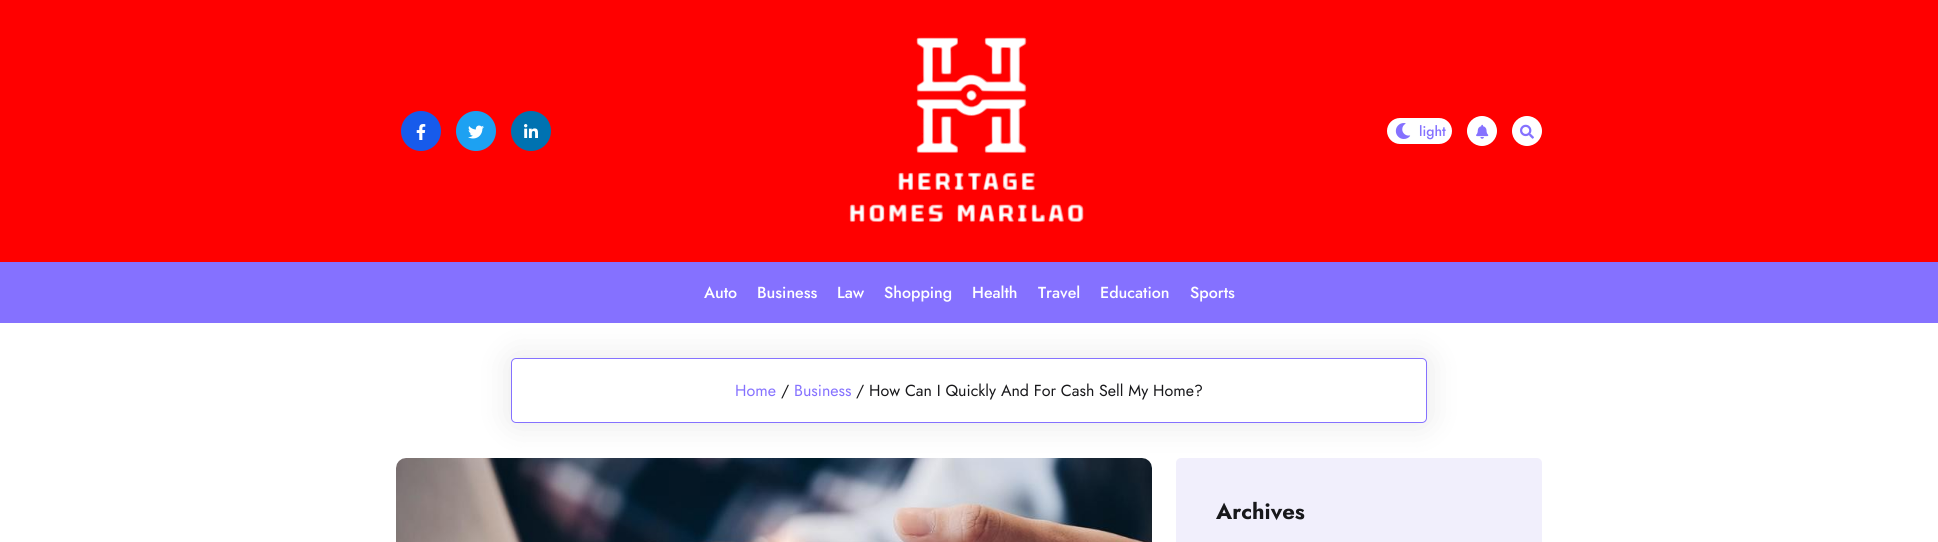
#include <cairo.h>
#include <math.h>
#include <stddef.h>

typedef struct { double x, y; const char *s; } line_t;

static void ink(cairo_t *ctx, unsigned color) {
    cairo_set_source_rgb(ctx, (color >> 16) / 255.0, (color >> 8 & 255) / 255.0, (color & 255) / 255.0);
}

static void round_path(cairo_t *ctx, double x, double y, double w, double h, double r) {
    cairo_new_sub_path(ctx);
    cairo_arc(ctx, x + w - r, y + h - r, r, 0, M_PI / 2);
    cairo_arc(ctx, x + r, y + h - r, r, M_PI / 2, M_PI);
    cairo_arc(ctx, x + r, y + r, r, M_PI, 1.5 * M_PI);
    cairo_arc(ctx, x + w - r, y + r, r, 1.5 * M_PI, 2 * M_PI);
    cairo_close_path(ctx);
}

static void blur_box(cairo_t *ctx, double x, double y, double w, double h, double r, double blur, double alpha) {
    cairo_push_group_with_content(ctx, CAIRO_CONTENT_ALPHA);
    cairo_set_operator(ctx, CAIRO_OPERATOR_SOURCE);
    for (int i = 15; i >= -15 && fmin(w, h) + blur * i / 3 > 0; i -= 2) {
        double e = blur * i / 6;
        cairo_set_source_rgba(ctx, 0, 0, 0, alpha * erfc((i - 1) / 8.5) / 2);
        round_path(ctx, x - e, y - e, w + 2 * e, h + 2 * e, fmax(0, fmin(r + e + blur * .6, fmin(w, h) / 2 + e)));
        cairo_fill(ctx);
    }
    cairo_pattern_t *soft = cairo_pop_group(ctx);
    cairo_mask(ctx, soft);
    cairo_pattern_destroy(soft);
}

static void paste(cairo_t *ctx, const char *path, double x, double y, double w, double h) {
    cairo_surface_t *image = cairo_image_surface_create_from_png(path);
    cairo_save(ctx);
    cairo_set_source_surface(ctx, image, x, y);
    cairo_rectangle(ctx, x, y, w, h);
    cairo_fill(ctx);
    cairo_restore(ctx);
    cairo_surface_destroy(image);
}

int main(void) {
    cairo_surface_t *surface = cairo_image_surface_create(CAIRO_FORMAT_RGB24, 1938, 542);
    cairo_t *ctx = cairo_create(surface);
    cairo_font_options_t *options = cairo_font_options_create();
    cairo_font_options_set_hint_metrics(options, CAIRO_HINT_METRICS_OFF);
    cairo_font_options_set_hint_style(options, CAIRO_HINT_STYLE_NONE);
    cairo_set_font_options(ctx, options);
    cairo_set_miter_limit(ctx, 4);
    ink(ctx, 0xFFFFFF);
    cairo_paint(ctx);
    ink(ctx, 0xFF0000);
    cairo_rectangle(ctx, 0, 0, 1938, 262);
    cairo_fill(ctx);
    ink(ctx, 0x175BEB);
    cairo_arc(ctx, 421, 131, 20, 0, 2 * M_PI);
    cairo_fill(ctx);
    paste(ctx, "media/1.png", 416, 124, 10, 16);
    ink(ctx, 0x1DA1F2);
    cairo_arc(ctx, 476, 131, 20, 0, 2 * M_PI);
    cairo_fill(ctx);
    paste(ctx, "media/2.png", 468, 125, 16, 14);
    ink(ctx, 0x0072B1);
    cairo_arc(ctx, 531, 131, 20, 0, 2 * M_PI);
    cairo_fill(ctx);
    paste(ctx, "media/3.png", 524, 124, 14, 14);
    paste(ctx, "media/4.png", 849, 37, 235, 185);
    ink(ctx, 0xFFFFFF);
    round_path(ctx, 1387, 118, 65, 26, 13);
    cairo_fill(ctx);
    paste(ctx, "media/5.png", 1395, 123, 16, 16);
    cairo_select_font_face(ctx, "Jost Medium", CAIRO_FONT_SLANT_NORMAL, CAIRO_FONT_WEIGHT_NORMAL);
    cairo_set_font_size(ctx, 14);
    ink(ctx, 0x8571FF);
    cairo_move_to(ctx, 1419, 136);
    cairo_show_text(ctx, "light");
    ink(ctx, 0xFFFFFF);
    cairo_new_path(ctx);
    cairo_arc(ctx, 1482, 131, 15, 0, 2 * M_PI);
    cairo_fill(ctx);
    paste(ctx, "media/6.png", 1476, 124, 13, 15);
    cairo_arc(ctx, 1527, 131, 15, 0, 2 * M_PI);
    cairo_fill(ctx);
    paste(ctx, "media/7.png", 1520, 124, 14, 15);
    cairo_save(ctx);
    cairo_set_fill_rule(ctx, CAIRO_FILL_RULE_EVEN_ODD);
    cairo_new_path(ctx);
    cairo_move_to(ctx, 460, 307);
    cairo_line_to(ctx, 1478, 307);
    cairo_line_to(ctx, 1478, 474);
    cairo_line_to(ctx, 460, 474);
    cairo_close_path(ctx);
    cairo_move_to(ctx, 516, 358);
    cairo_line_to(ctx, 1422, 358);
    cairo_curve_to(ctx, 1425, 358, 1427, 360, 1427, 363);
    cairo_line_to(ctx, 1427, 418);
    cairo_curve_to(ctx, 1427, 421, 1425, 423, 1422, 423);
    cairo_line_to(ctx, 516, 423);
    cairo_curve_to(ctx, 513, 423, 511, 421, 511, 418);
    cairo_line_to(ctx, 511, 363);
    cairo_curve_to(ctx, 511, 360, 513, 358, 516, 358);
    cairo_close_path(ctx);
    cairo_clip(ctx);
    ink(ctx, 0x000000);
    blur_box(ctx, 511, 358, 916, 65, 5, 16.5, 0.1);
    cairo_restore(ctx);
    ink(ctx, 0x8571FF);
    cairo_rectangle(ctx, 0, 262, 1938, 61);
    cairo_fill(ctx);
    cairo_set_font_size(ctx, 16);
    ink(ctx, 0xFFFFFF);
    {
        static const line_t items[] = {
            {704, 298, "Auto"},
            {757, 298, "Business"},
            {837, 298, "Law"},
            {884, 298, "Shopping"},
            {972, 298, "Health"},
            {1038, 298, "Travel"},
            {1100, 298, "Education"},
            {1190, 298, "Sports"},
        };
        for (size_t i = 0; i < sizeof items / sizeof *items; i++) {
            cairo_move_to(ctx, items[i].x, items[i].y);
            cairo_show_text(ctx, items[i].s);
        }
    }
    round_path(ctx, 511.5, 358.5, 915, 64, 4.5);
    ink(ctx, 0x8571FF);
    cairo_set_line_width(ctx, 1);
    cairo_stroke(ctx);
    cairo_select_font_face(ctx, "Jost", CAIRO_FONT_SLANT_NORMAL, CAIRO_FONT_WEIGHT_NORMAL);
    cairo_move_to(ctx, 735, 396);
    cairo_show_text(ctx, "Home");
    ink(ctx, 0x18181B);
    cairo_move_to(ctx, 781, 396);
    cairo_show_text(ctx, "/");
    ink(ctx, 0x8571FF);
    cairo_move_to(ctx, 794, 396);
    cairo_show_text(ctx, "Business");
    ink(ctx, 0x18181B);
    cairo_move_to(ctx, 856, 396);
    cairo_show_text(ctx, "/ How Can I Quickly And For Cash Sell My Home?");
    paste(ctx, "media/8.png", 396, 458, 756, 84);
    ink(ctx, 0xF1EFFC);
    round_path(ctx, 1176, 458, 366, 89, 5);
    cairo_fill(ctx);
    cairo_select_font_face(ctx, "Jost", CAIRO_FONT_SLANT_NORMAL, CAIRO_FONT_WEIGHT_BOLD);
    cairo_set_font_size(ctx, 22);
    ink(ctx, 0x18181B);
    cairo_move_to(ctx, 1216, 519);
    cairo_show_text(ctx, "Archives");
    cairo_surface_write_to_png(surface, "image.png");
    cairo_font_options_destroy(options);
    cairo_destroy(ctx);
    cairo_surface_destroy(surface);
    return 0;
}
